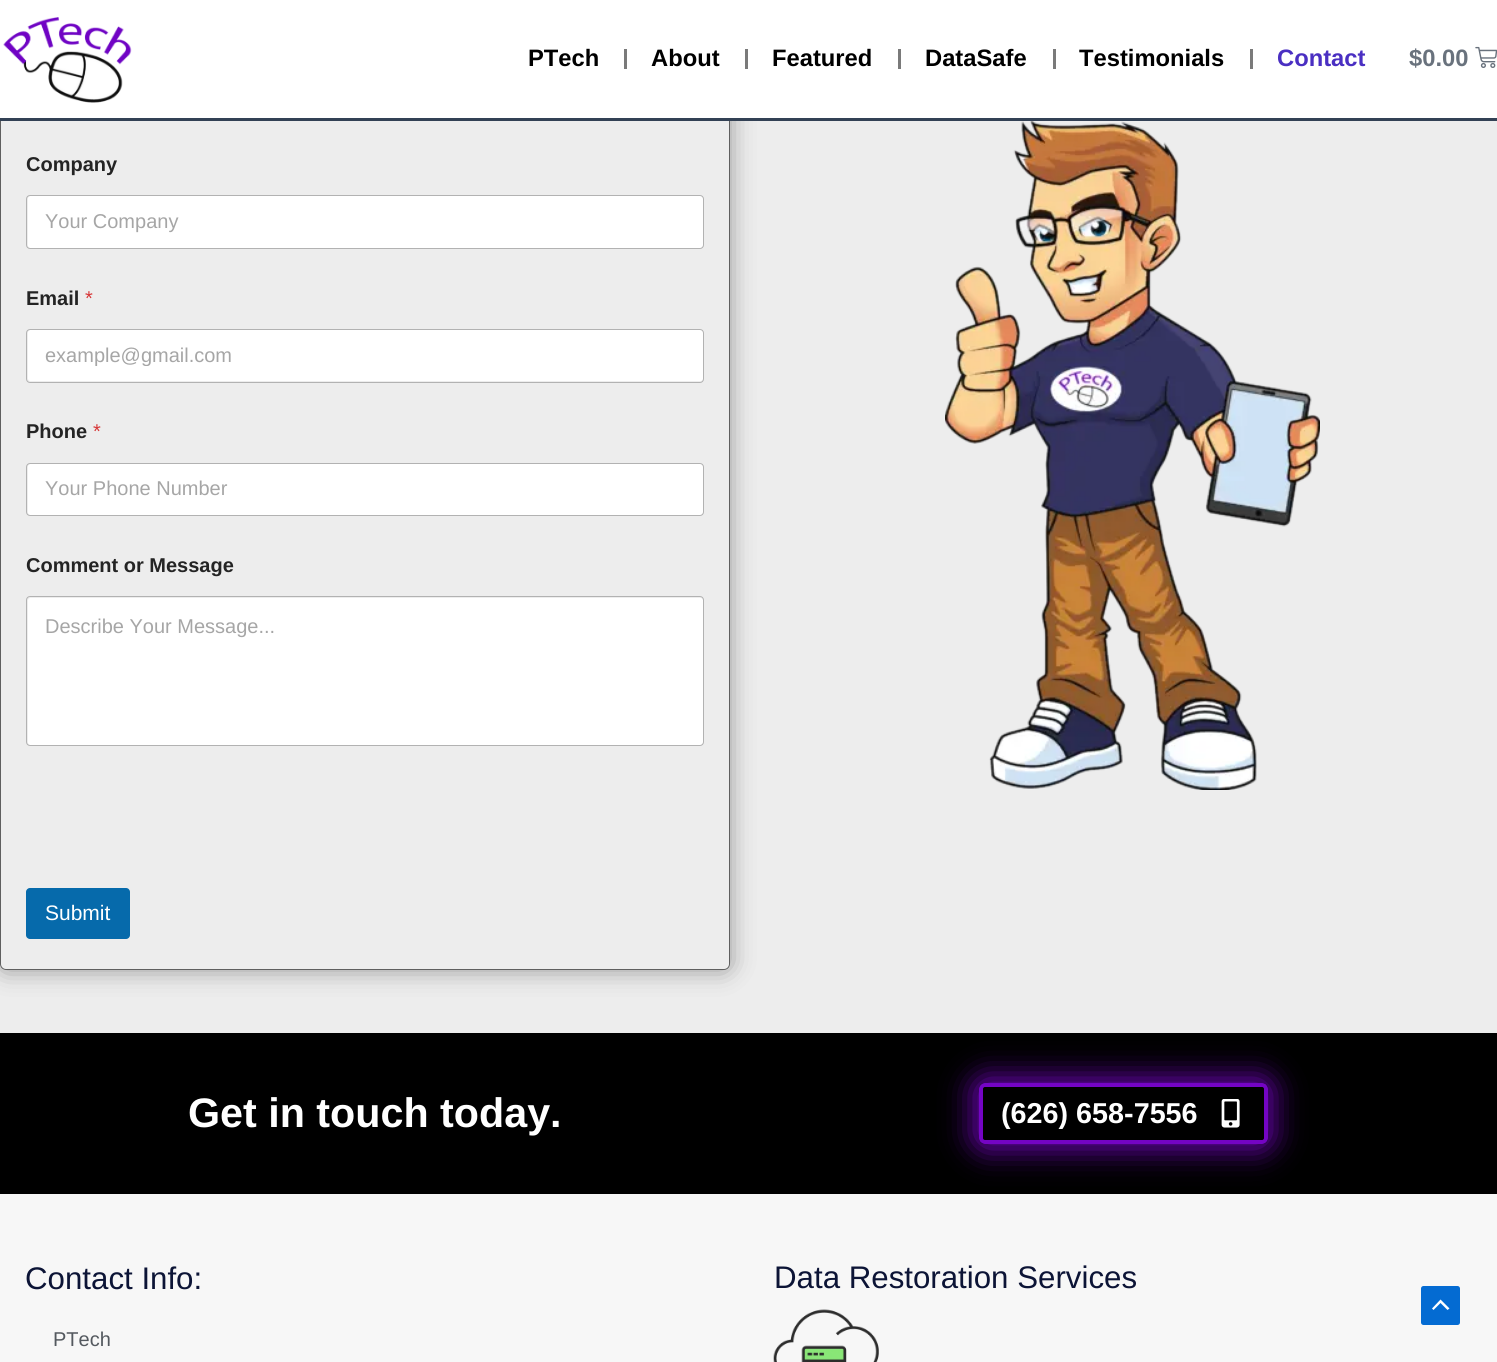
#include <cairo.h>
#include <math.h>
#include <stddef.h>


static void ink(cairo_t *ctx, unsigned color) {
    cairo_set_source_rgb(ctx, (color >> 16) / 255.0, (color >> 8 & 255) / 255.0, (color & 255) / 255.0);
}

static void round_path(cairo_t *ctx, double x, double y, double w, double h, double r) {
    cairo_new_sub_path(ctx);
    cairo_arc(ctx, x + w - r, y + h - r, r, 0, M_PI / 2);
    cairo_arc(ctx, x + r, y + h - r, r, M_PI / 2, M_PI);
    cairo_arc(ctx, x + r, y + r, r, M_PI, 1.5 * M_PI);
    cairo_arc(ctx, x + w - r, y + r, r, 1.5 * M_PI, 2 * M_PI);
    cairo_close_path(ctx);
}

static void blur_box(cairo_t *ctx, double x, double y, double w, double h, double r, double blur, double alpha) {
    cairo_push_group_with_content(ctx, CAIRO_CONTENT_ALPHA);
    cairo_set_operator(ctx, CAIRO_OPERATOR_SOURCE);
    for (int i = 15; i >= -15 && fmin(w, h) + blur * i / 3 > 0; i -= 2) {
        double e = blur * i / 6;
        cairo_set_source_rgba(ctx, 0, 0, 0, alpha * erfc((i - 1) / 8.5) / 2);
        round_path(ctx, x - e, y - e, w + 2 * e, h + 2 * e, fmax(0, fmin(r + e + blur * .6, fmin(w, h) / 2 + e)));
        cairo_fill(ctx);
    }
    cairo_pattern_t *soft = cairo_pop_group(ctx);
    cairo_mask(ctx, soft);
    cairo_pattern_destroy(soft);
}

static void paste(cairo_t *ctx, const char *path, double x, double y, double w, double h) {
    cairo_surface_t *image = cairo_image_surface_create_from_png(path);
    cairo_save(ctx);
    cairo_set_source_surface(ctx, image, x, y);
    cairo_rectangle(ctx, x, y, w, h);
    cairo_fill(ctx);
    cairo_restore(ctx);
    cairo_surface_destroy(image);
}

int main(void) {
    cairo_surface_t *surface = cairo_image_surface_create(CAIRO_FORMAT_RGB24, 1497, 1362);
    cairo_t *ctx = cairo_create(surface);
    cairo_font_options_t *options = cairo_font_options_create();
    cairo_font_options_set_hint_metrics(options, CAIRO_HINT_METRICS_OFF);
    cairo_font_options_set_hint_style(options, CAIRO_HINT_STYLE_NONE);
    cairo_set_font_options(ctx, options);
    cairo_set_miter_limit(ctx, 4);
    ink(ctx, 0xEDEDED);
    cairo_paint(ctx);
    cairo_save(ctx);
    cairo_set_fill_rule(ctx, CAIRO_FILL_RULE_EVEN_ODD);
    cairo_new_path(ctx);
    cairo_move_to(ctx, 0, 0);
    cairo_line_to(ctx, 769, 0);
    cairo_line_to(ctx, 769, 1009);
    cairo_line_to(ctx, 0, 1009);
    cairo_close_path(ctx);
    cairo_move_to(ctx, 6, -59);
    cairo_line_to(ctx, 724, -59);
    cairo_curve_to(ctx, 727.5, -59, 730, -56.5, 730, -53);
    cairo_line_to(ctx, 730, 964);
    cairo_curve_to(ctx, 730, 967.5, 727.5, 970, 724, 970);
    cairo_line_to(ctx, 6, 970);
    cairo_curve_to(ctx, 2.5, 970, 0, 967.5, 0, 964);
    cairo_line_to(ctx, 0, -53);
    cairo_curve_to(ctx, 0, -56.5, 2.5, -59, 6, -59);
    cairo_close_path(ctx);
    cairo_clip(ctx);
    ink(ctx, 0x000000);
    blur_box(ctx, 0, -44, 730, 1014, 6, 12.5, 0.37);
    cairo_restore(ctx);
    round_path(ctx, 0.5, -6.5, 729, 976, 5.5);
    cairo_set_source_rgba(ctx, 0, 0, 0, 0.6);
    cairo_set_line_width(ctx, 1);
    cairo_stroke(ctx);
    ink(ctx, 0xFFFFFF);
    cairo_rectangle(ctx, 0, 0, 1497, 118);
    cairo_fill(ctx);
    ink(ctx, 0x334155);
    cairo_rectangle(ctx, 0, 118, 1497, 3);
    cairo_fill(ctx);
    paste(ctx, "media/1.png", 3, 17, 129, 86);
    cairo_select_font_face(ctx, "Liberation Sans", CAIRO_FONT_SLANT_NORMAL, CAIRO_FONT_WEIGHT_BOLD);
    cairo_set_font_size(ctx, 23.75);
    ink(ctx, 0x000000);
    cairo_move_to(ctx, 528, 66);
    cairo_show_text(ctx, "PTech");
    ink(ctx, 0x7A7A7A);
    cairo_rectangle(ctx, 624, 49, 3, 20);
    cairo_fill(ctx);
    ink(ctx, 0x000000);
    cairo_move_to(ctx, 651, 66);
    cairo_show_text(ctx, "About");
    ink(ctx, 0x7A7A7A);
    cairo_rectangle(ctx, 745, 49, 3, 20);
    cairo_fill(ctx);
    ink(ctx, 0x000000);
    cairo_move_to(ctx, 772, 66);
    cairo_show_text(ctx, "Featured");
    ink(ctx, 0x7A7A7A);
    cairo_rectangle(ctx, 898, 49, 3, 20);
    cairo_fill(ctx);
    ink(ctx, 0x000000);
    cairo_move_to(ctx, 925, 66);
    cairo_show_text(ctx, "DataSafe");
    ink(ctx, 0x7A7A7A);
    cairo_rectangle(ctx, 1053, 49, 3, 20);
    cairo_fill(ctx);
    ink(ctx, 0x000000);
    cairo_move_to(ctx, 1079, 66);
    cairo_show_text(ctx, "Testimonials");
    ink(ctx, 0x7A7A7A);
    cairo_rectangle(ctx, 1250, 49, 3, 20);
    cairo_fill(ctx);
    ink(ctx, 0x4A2FC2);
    cairo_move_to(ctx, 1277, 66);
    cairo_show_text(ctx, "Contact");
    ink(ctx, 0x69727D);
    cairo_move_to(ctx, 1409, 66);
    cairo_show_text(ctx, "$0.00");
    paste(ctx, "media/2.png", 1475, 46, 22, 22);
    cairo_set_font_size(ctx, 20);
    ink(ctx, 0x242424);
    cairo_move_to(ctx, 26, 171);
    cairo_show_text(ctx, "Company");
    ink(ctx, 0xFFFFFF);
    round_path(ctx, 28, 196, 675, 52, 2.5);
    cairo_fill(ctx);
    round_path(ctx, 26.5, 195.5, 677, 53, 3.5);
    ink(ctx, 0xB2B2B2);
    cairo_stroke(ctx);
    cairo_select_font_face(ctx, "Liberation Sans", CAIRO_FONT_SLANT_NORMAL, CAIRO_FONT_WEIGHT_NORMAL);
    ink(ctx, 0xA6A6A6);
    cairo_move_to(ctx, 45, 228);
    cairo_show_text(ctx, "Your Company");
    cairo_select_font_face(ctx, "Liberation Sans", CAIRO_FONT_SLANT_NORMAL, CAIRO_FONT_WEIGHT_BOLD);
    ink(ctx, 0x242424);
    cairo_move_to(ctx, 26, 305);
    cairo_show_text(ctx, "Email");
    cairo_select_font_face(ctx, "Liberation Sans", CAIRO_FONT_SLANT_NORMAL, CAIRO_FONT_WEIGHT_NORMAL);
    ink(ctx, 0xD63637);
    cairo_move_to(ctx, 85, 305);
    cairo_show_text(ctx, "*");
    ink(ctx, 0xFFFFFF);
    round_path(ctx, 28, 330, 675, 51, 2.5);
    cairo_fill(ctx);
    round_path(ctx, 26.5, 329.5, 677, 53, 3.5);
    ink(ctx, 0xB2B2B2);
    cairo_stroke(ctx);
    cairo_save(ctx);
    cairo_rectangle(ctx, 45, 344, 640, 22);
    cairo_clip(ctx);
    ink(ctx, 0xA6A6A6);
    cairo_move_to(ctx, 45, 362);
    cairo_show_text(ctx, "example@gmail.com");
    cairo_restore(ctx);
    cairo_select_font_face(ctx, "Liberation Sans", CAIRO_FONT_SLANT_NORMAL, CAIRO_FONT_WEIGHT_BOLD);
    ink(ctx, 0x242424);
    cairo_move_to(ctx, 26, 438);
    cairo_show_text(ctx, "Phone");
    cairo_select_font_face(ctx, "Liberation Sans", CAIRO_FONT_SLANT_NORMAL, CAIRO_FONT_WEIGHT_NORMAL);
    ink(ctx, 0xD63637);
    cairo_move_to(ctx, 93, 438);
    cairo_show_text(ctx, "*");
    ink(ctx, 0xFFFFFF);
    round_path(ctx, 28, 464, 675, 51, 2.5);
    cairo_fill(ctx);
    round_path(ctx, 26.5, 463.5, 677, 52, 3.5);
    ink(ctx, 0xB2B2B2);
    cairo_stroke(ctx);
    ink(ctx, 0xA6A6A6);
    cairo_move_to(ctx, 45, 495);
    cairo_show_text(ctx, "Your Phone Number");
    cairo_select_font_face(ctx, "Liberation Sans", CAIRO_FONT_SLANT_NORMAL, CAIRO_FONT_WEIGHT_BOLD);
    ink(ctx, 0x242424);
    cairo_move_to(ctx, 26, 572);
    cairo_show_text(ctx, "Comment or Message");
    ink(ctx, 0xFFFFFF);
    round_path(ctx, 28, 598, 675, 147, 2.5);
    cairo_fill(ctx);
    round_path(ctx, 26.5, 596.5, 677, 149, 3.5);
    ink(ctx, 0xB2B2B2);
    cairo_stroke(ctx);
    cairo_select_font_face(ctx, "Liberation Sans", CAIRO_FONT_SLANT_NORMAL, CAIRO_FONT_WEIGHT_NORMAL);
    ink(ctx, 0xA6A6A6);
    cairo_move_to(ctx, 45, 633);
    cairo_show_text(ctx, "Describe Your Message...");
    ink(ctx, 0x066AAB);
    round_path(ctx, 26, 888, 104, 51, 4);
    cairo_fill(ctx);
    cairo_set_font_size(ctx, 21);
    ink(ctx, 0xFFFFFF);
    cairo_move_to(ctx, 45, 920);
    cairo_show_text(ctx, "Submit");
    paste(ctx, "media/3.png", 945, 121, 375, 669);
    ink(ctx, 0x000000);
    cairo_rectangle(ctx, 0, 1033, 1497, 161);
    cairo_fill(ctx);
    cairo_select_font_face(ctx, "Liberation Sans", CAIRO_FONT_SLANT_NORMAL, CAIRO_FONT_WEIGHT_BOLD);
    cairo_set_font_size(ctx, 41.25);
    ink(ctx, 0xFFFFFF);
    cairo_move_to(ctx, 188, 1127);
    cairo_show_text(ctx, "Get in touch today.");
    cairo_save(ctx);
    cairo_set_fill_rule(ctx, CAIRO_FILL_RULE_EVEN_ODD);
    cairo_new_path(ctx);
    cairo_move_to(ctx, 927, 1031);
    cairo_line_to(ctx, 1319, 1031);
    cairo_line_to(ctx, 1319, 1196);
    cairo_line_to(ctx, 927, 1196);
    cairo_close_path(ctx);
    cairo_move_to(ctx, 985, 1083);
    cairo_line_to(ctx, 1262, 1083);
    cairo_curve_to(ctx, 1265.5, 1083, 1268, 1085.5, 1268, 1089);
    cairo_line_to(ctx, 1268, 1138);
    cairo_curve_to(ctx, 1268, 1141.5, 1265.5, 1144, 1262, 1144);
    cairo_line_to(ctx, 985, 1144);
    cairo_curve_to(ctx, 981.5, 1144, 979, 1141.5, 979, 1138);
    cairo_line_to(ctx, 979, 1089);
    cairo_curve_to(ctx, 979, 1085.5, 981.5, 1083, 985, 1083);
    cairo_close_path(ctx);
    cairo_clip(ctx);
    ink(ctx, 0x7404C4);
    blur_box(ctx, 975, 1079, 296, 69, 10, 15.5, 1);
    cairo_restore(ctx);
    round_path(ctx, 981, 1085, 285, 57, 4);
    ink(ctx, 0x7404C4);
    cairo_set_line_width(ctx, 4);
    cairo_stroke(ctx);
    cairo_set_font_size(ctx, 28.75);
    ink(ctx, 0xFFFFFF);
    cairo_move_to(ctx, 1001, 1123);
    cairo_show_text(ctx, "(626) 658-7556");
    paste(ctx, "media/4.png", 1221, 1099, 19, 29);
    ink(ctx, 0xF7F7F7);
    cairo_rectangle(ctx, 0, 1194, 1497, 168);
    cairo_fill(ctx);
    cairo_select_font_face(ctx, "Liberation Sans", CAIRO_FONT_SLANT_NORMAL, CAIRO_FONT_WEIGHT_NORMAL);
    cairo_set_font_size(ctx, 31.25);
    ink(ctx, 0x0C1436);
    cairo_move_to(ctx, 25, 1289);
    cairo_show_text(ctx, "Contact Info:");
    cairo_set_font_size(ctx, 20);
    ink(ctx, 0x54595F);
    cairo_move_to(ctx, 53, 1346);
    cairo_show_text(ctx, "PTech");
    cairo_set_font_size(ctx, 31.25);
    ink(ctx, 0x0C1436);
    cairo_move_to(ctx, 774, 1288);
    cairo_show_text(ctx, "Data Restoration Services");
    paste(ctx, "media/5.png", 773, 1309, 106, 53);
    ink(ctx, 0x046BD2);
    round_path(ctx, 1421, 1286, 39, 39, 2.5);
    cairo_fill(ctx);
    ink(ctx, 0xFFFFFF);
    cairo_new_path(ctx);
    cairo_move_to(ctx, 1449.5, 1308.5);
    cairo_line_to(ctx, 1440.5, 1299.5);
    cairo_line_to(ctx, 1432, 1308.5);
    cairo_line_to(ctx, 1433.5, 1310);
    cairo_line_to(ctx, 1440.5, 1303);
    cairo_line_to(ctx, 1447.5, 1310);
    cairo_close_path(ctx);
    cairo_fill(ctx);
    cairo_surface_write_to_png(surface, "image.png");
    cairo_font_options_destroy(options);
    cairo_destroy(ctx);
    cairo_surface_destroy(surface);
    return 0;
}
